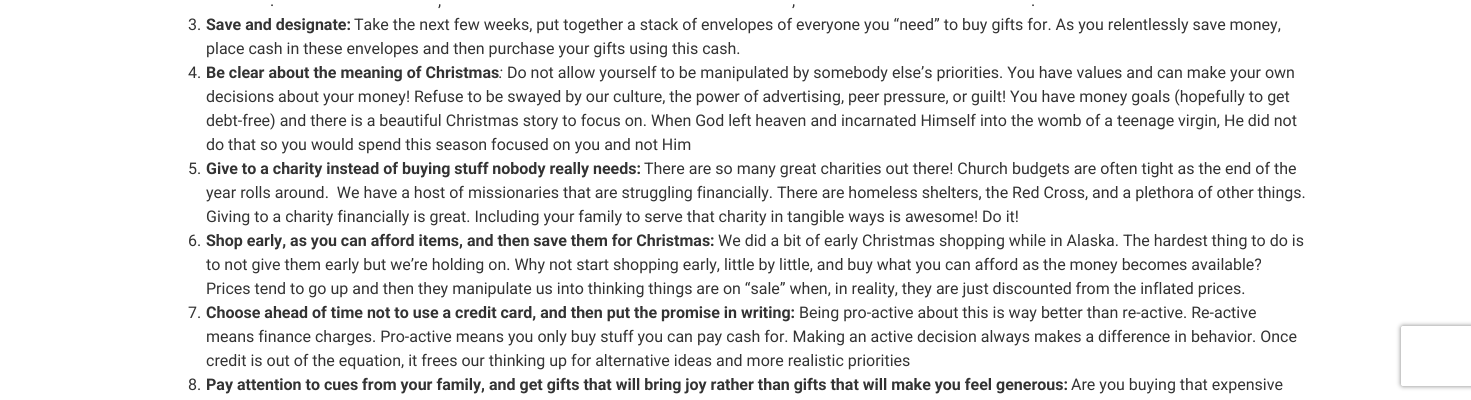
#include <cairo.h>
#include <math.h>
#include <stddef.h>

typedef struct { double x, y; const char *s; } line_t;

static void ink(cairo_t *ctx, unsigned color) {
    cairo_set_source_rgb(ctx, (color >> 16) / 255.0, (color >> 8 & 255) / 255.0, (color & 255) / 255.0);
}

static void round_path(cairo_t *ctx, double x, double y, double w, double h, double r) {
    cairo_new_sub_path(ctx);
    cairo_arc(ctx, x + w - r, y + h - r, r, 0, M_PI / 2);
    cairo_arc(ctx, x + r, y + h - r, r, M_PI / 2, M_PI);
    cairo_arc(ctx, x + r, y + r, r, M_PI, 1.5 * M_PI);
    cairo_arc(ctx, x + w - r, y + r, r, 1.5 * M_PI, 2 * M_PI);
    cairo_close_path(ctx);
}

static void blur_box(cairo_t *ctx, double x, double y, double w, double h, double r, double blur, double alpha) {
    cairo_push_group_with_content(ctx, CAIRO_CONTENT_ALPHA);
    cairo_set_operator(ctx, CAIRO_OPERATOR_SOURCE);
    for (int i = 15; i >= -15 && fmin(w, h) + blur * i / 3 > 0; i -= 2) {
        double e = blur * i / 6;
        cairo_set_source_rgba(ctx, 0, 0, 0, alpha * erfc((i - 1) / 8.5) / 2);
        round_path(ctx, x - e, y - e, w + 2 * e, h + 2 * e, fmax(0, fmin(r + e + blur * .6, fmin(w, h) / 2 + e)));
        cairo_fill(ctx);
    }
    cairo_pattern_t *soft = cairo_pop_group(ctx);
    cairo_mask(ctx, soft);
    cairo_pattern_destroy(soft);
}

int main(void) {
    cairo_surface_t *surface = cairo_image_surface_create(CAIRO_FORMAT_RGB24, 1471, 400);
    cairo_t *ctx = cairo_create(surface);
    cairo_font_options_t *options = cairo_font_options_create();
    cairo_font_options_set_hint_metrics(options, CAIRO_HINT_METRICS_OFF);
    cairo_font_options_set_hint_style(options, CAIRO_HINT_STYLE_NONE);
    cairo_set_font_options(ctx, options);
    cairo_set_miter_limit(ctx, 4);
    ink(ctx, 0xFFFFFF);
    cairo_paint(ctx);
    cairo_select_font_face(ctx, "Roboto", CAIRO_FONT_SLANT_NORMAL, CAIRO_FONT_WEIGHT_NORMAL);
    cairo_set_font_size(ctx, 16);
    ink(ctx, 0x333333);
    {
        static const line_t items[] = {
            {270, 6, "."},
            {438, 6, ","},
            {792, 6, ","},
            {1031, 6, "."},
            {188, 30, "3."},
        };
        for (size_t i = 0; i < sizeof items / sizeof *items; i++) {
            cairo_move_to(ctx, items[i].x, items[i].y);
            cairo_show_text(ctx, items[i].s);
        }
    }
    cairo_select_font_face(ctx, "Roboto", CAIRO_FONT_SLANT_NORMAL, CAIRO_FONT_WEIGHT_BOLD);
    cairo_move_to(ctx, 206, 30);
    cairo_show_text(ctx, "Save and designate:");
    cairo_select_font_face(ctx, "Roboto", CAIRO_FONT_SLANT_NORMAL, CAIRO_FONT_WEIGHT_NORMAL);
    {
        static const line_t items[] = {
            {354, 30, "Take the next few weeks, put together a stack of envelopes of everyone you “need” to buy gifts for. As you relentlessly save money,"},
            {206, 54, "place cash in these envelopes and then purchase your gifts using this cash."},
            {188, 78, "4."},
        };
        for (size_t i = 0; i < sizeof items / sizeof *items; i++) {
            cairo_move_to(ctx, items[i].x, items[i].y);
            cairo_show_text(ctx, items[i].s);
        }
    }
    cairo_select_font_face(ctx, "Roboto", CAIRO_FONT_SLANT_NORMAL, CAIRO_FONT_WEIGHT_BOLD);
    cairo_move_to(ctx, 206, 78);
    cairo_show_text(ctx, "Be clear about the meaning of Christmas");
    cairo_select_font_face(ctx, "Roboto", CAIRO_FONT_SLANT_ITALIC, CAIRO_FONT_WEIGHT_NORMAL);
    cairo_move_to(ctx, 499, 78);
    cairo_show_text(ctx, ":");
    cairo_select_font_face(ctx, "Roboto", CAIRO_FONT_SLANT_NORMAL, CAIRO_FONT_WEIGHT_NORMAL);
    {
        static const line_t items[] = {
            {507, 78, "Do not allow yourself to be manipulated by somebody else’s priorities. You have values and can make your own"},
            {206, 102, "decisions about your money! Refuse to be swayed by our culture, the power of advertising, peer pressure, or guilt! You have money goals (hopefully to get"},
            {206, 126, "debt-free) and there is a beautiful Christmas story to focus on. When God left heaven and incarnated Himself into the womb of a teenage virgin, He did not"},
            {206, 150, "do that so you would spend this season focused on you and not Him"},
            {188, 174, "5."},
        };
        for (size_t i = 0; i < sizeof items / sizeof *items; i++) {
            cairo_move_to(ctx, items[i].x, items[i].y);
            cairo_show_text(ctx, items[i].s);
        }
    }
    cairo_select_font_face(ctx, "Roboto", CAIRO_FONT_SLANT_NORMAL, CAIRO_FONT_WEIGHT_BOLD);
    cairo_move_to(ctx, 206, 174);
    cairo_show_text(ctx, "Give to a charity instead of buying stuff nobody really needs:");
    cairo_select_font_face(ctx, "Roboto", CAIRO_FONT_SLANT_NORMAL, CAIRO_FONT_WEIGHT_NORMAL);
    {
        static const line_t items[] = {
            {644, 174, "There are so many great charities out there! Church budgets are often tight as the end of the"},
            {206, 198, "year rolls around.  We have a host of missionaries that are struggling financially. There are homeless shelters, the Red Cross, and a plethora of other things."},
            {206, 222, "Giving to a charity financially is great. Including your family to serve that charity in tangible ways is awesome! Do it!"},
            {188, 246, "6."},
        };
        for (size_t i = 0; i < sizeof items / sizeof *items; i++) {
            cairo_move_to(ctx, items[i].x, items[i].y);
            cairo_show_text(ctx, items[i].s);
        }
    }
    cairo_select_font_face(ctx, "Roboto", CAIRO_FONT_SLANT_NORMAL, CAIRO_FONT_WEIGHT_BOLD);
    cairo_move_to(ctx, 206, 246);
    cairo_show_text(ctx, "Shop early, as you can afford items, and then save them for Christmas:");
    cairo_select_font_face(ctx, "Roboto", CAIRO_FONT_SLANT_NORMAL, CAIRO_FONT_WEIGHT_NORMAL);
    {
        static const line_t items[] = {
            {718, 246, "We did a bit of early Christmas shopping while in Alaska. The hardest thing to do is"},
            {206, 270, "to not give them early but we’re holding on. Why not start shopping early, little by little, and buy what you can afford as the money becomes available?"},
            {206, 294, "Prices tend to go up and then they manipulate us into thinking things are on “sale” when, in reality, they are just discounted from the inflated prices."},
            {188, 318, "7."},
        };
        for (size_t i = 0; i < sizeof items / sizeof *items; i++) {
            cairo_move_to(ctx, items[i].x, items[i].y);
            cairo_show_text(ctx, items[i].s);
        }
    }
    cairo_select_font_face(ctx, "Roboto", CAIRO_FONT_SLANT_NORMAL, CAIRO_FONT_WEIGHT_BOLD);
    cairo_move_to(ctx, 206, 318);
    cairo_show_text(ctx, "Choose ahead of time not to use a credit card, and then put the promise in writing:");
    cairo_select_font_face(ctx, "Roboto", CAIRO_FONT_SLANT_NORMAL, CAIRO_FONT_WEIGHT_NORMAL);
    {
        static const line_t items[] = {
            {799, 318, "Being pro-active about this is way better than re-active. Re-active"},
            {206, 342, "means finance charges. Pro-active means you only buy stuff you can pay cash for. Making an active decision always makes a difference in behavior. Once"},
            {206, 366, "credit is out of the equation, it frees our thinking up for alternative ideas and more realistic priorities"},
            {188, 390, "8."},
        };
        for (size_t i = 0; i < sizeof items / sizeof *items; i++) {
            cairo_move_to(ctx, items[i].x, items[i].y);
            cairo_show_text(ctx, items[i].s);
        }
    }
    cairo_select_font_face(ctx, "Roboto", CAIRO_FONT_SLANT_NORMAL, CAIRO_FONT_WEIGHT_BOLD);
    cairo_move_to(ctx, 206, 390);
    cairo_show_text(ctx, "Pay attention to cues from your family, and get gifts that will bring joy rather than gifts that will make you feel generous:");
    cairo_select_font_face(ctx, "Roboto", CAIRO_FONT_SLANT_NORMAL, CAIRO_FONT_WEIGHT_NORMAL);
    cairo_move_to(ctx, 1071, 390);
    cairo_show_text(ctx, "Are you buying that expensive");
    cairo_save(ctx);
    cairo_set_fill_rule(ctx, CAIRO_FILL_RULE_EVEN_ODD);
    cairo_new_path(ctx);
    cairo_move_to(ctx, 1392, 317);
    cairo_line_to(ctx, 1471, 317);
    cairo_line_to(ctx, 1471, 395);
    cairo_line_to(ctx, 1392, 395);
    cairo_close_path(ctx);
    cairo_move_to(ctx, 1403, 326);
    cairo_line_to(ctx, 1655, 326);
    cairo_curve_to(ctx, 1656, 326, 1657, 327, 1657, 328);
    cairo_line_to(ctx, 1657, 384);
    cairo_curve_to(ctx, 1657, 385, 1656, 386, 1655, 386);
    cairo_line_to(ctx, 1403, 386);
    cairo_curve_to(ctx, 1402, 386, 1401, 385, 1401, 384);
    cairo_line_to(ctx, 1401, 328);
    cairo_curve_to(ctx, 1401, 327, 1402, 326, 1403, 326);
    cairo_close_path(ctx);
    cairo_clip(ctx);
    ink(ctx, 0x808080);
    blur_box(ctx, 1401, 326, 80, 60, 2, 2.5, 1);
    cairo_restore(ctx);
    cairo_surface_write_to_png(surface, "image.png");
    cairo_font_options_destroy(options);
    cairo_destroy(ctx);
    cairo_surface_destroy(surface);
    return 0;
}
